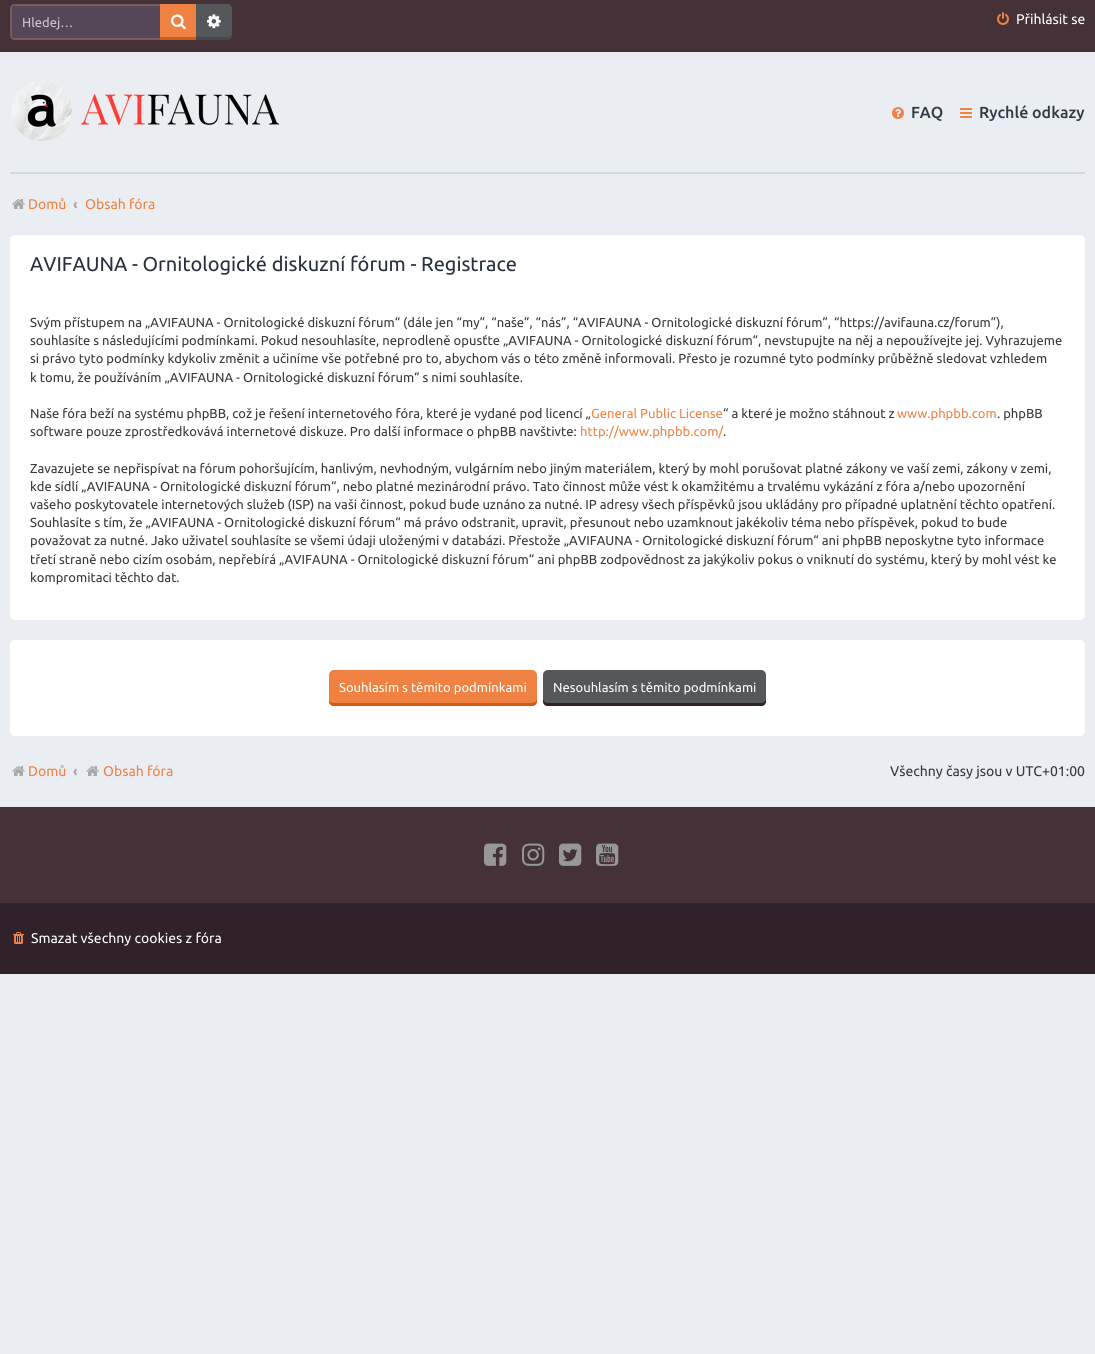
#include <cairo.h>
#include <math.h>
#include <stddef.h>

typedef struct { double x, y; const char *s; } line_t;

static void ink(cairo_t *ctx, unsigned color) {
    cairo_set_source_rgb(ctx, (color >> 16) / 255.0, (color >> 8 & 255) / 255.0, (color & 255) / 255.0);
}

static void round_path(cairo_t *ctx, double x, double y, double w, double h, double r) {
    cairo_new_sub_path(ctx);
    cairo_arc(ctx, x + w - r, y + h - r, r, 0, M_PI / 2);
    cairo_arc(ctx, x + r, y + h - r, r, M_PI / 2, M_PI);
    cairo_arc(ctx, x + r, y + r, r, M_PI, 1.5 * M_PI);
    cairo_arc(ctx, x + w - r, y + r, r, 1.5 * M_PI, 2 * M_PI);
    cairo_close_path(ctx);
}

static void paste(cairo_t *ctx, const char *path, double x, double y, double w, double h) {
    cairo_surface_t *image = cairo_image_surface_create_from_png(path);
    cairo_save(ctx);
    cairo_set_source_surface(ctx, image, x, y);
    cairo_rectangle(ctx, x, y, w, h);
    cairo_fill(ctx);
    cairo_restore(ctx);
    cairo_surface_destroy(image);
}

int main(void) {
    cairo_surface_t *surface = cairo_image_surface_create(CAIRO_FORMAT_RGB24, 1095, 1354);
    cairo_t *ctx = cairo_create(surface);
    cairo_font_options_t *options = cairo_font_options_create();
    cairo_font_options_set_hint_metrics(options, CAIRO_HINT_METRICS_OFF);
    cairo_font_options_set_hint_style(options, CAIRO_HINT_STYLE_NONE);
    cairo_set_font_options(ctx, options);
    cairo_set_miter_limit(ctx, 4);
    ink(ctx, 0xEAEDF1);
    cairo_paint(ctx);
    ink(ctx, 0x453239);
    cairo_rectangle(ctx, 0, 0, 1095, 52);
    cairo_fill(ctx);
    ink(ctx, 0x554758);
    cairo_new_path(ctx);
    cairo_move_to(ctx, 15, 6);
    cairo_line_to(ctx, 160, 6);
    cairo_line_to(ctx, 160, 38);
    cairo_line_to(ctx, 15, 38);
    cairo_curve_to(ctx, 13.5, 38, 12, 36.5, 12, 35);
    cairo_line_to(ctx, 12, 9);
    cairo_curve_to(ctx, 12, 7.5, 13.5, 6, 15, 6);
    cairo_close_path(ctx);
    cairo_fill(ctx);
    ink(ctx, 0x7D5A63);
    cairo_set_fill_rule(ctx, CAIRO_FILL_RULE_EVEN_ODD);
    cairo_new_path(ctx);
    cairo_move_to(ctx, 15, 4);
    cairo_line_to(ctx, 160, 4);
    cairo_line_to(ctx, 160, 40);
    cairo_line_to(ctx, 15, 40);
    cairo_curve_to(ctx, 12, 40, 10, 38, 10, 35);
    cairo_line_to(ctx, 10, 9);
    cairo_curve_to(ctx, 10, 6, 12, 4, 15, 4);
    cairo_close_path(ctx);
    cairo_move_to(ctx, 15, 6);
    cairo_line_to(ctx, 160, 6);
    cairo_line_to(ctx, 160, 38);
    cairo_line_to(ctx, 15, 38);
    cairo_curve_to(ctx, 13, 38, 12, 37, 12, 35);
    cairo_line_to(ctx, 12, 9);
    cairo_curve_to(ctx, 12, 7, 13, 6, 15, 6);
    cairo_close_path(ctx);
    cairo_fill(ctx);
    cairo_select_font_face(ctx, "Ubuntu", CAIRO_FONT_SLANT_NORMAL, CAIRO_FONT_WEIGHT_NORMAL);
    cairo_set_font_size(ctx, 13);
    ink(ctx, 0xCCC8CD);
    cairo_move_to(ctx, 22, 27);
    cairo_show_text(ctx, "Hledej…");
    ink(ctx, 0xEF8243);
    cairo_rectangle(ctx, 160, 4, 36, 33);
    cairo_fill(ctx);
    ink(ctx, 0xD35A14);
    cairo_rectangle(ctx, 160, 37, 36, 3);
    cairo_fill(ctx);
    paste(ctx, "media/1.png", 171, 14, 15, 16);
    ink(ctx, 0x54585B);
    cairo_new_path(ctx);
    cairo_move_to(ctx, 196, 4);
    cairo_line_to(ctx, 227, 4);
    cairo_curve_to(ctx, 230, 4, 232, 6, 232, 9);
    cairo_line_to(ctx, 232, 35);
    cairo_curve_to(ctx, 232, 38, 230, 40, 227, 40);
    cairo_line_to(ctx, 196, 40);
    cairo_close_path(ctx);
    cairo_fill(ctx);
    ink(ctx, 0x444A4F);
    cairo_set_fill_rule(ctx, CAIRO_FILL_RULE_WINDING);
    cairo_new_path(ctx);
    cairo_move_to(ctx, 196, 37);
    cairo_line_to(ctx, 196, 40);
    cairo_line_to(ctx, 227, 40);
    cairo_curve_to(ctx, 230, 40, 232, 38, 232, 35);
    cairo_line_to(ctx, 232, 32);
    cairo_curve_to(ctx, 232, 35, 230, 37, 227, 37);
    cairo_close_path(ctx);
    cairo_fill(ctx);
    paste(ctx, "media/2.png", 207, 14, 14, 15);
    paste(ctx, "media/3.png", 997, 12, 12, 13);
    cairo_set_font_size(ctx, 14);
    ink(ctx, 0xFFFFFF);
    cairo_move_to(ctx, 1016, 24);
    cairo_show_text(ctx, "Přihlásit se");
    paste(ctx, "media/4.png", 11, 81, 268, 60);
    paste(ctx, "media/5.png", 892, 107, 12, 12);
    cairo_select_font_face(ctx, "Ubuntu Medium", CAIRO_FONT_SLANT_NORMAL, CAIRO_FONT_WEIGHT_NORMAL);
    cairo_set_font_size(ctx, 16);
    ink(ctx, 0x323A45);
    cairo_move_to(ctx, 911, 118);
    cairo_show_text(ctx, "FAQ");
    paste(ctx, "media/6.png", 960, 108, 12, 10);
    cairo_move_to(ctx, 979, 118);
    cairo_show_text(ctx, "Rychlé odkazy");
    ink(ctx, 0xCFD7DC);
    cairo_rectangle(ctx, 10, 172, 1075, 2);
    cairo_fill(ctx);
    paste(ctx, "media/7.png", 12, 199, 13, 10);
    cairo_select_font_face(ctx, "Ubuntu", CAIRO_FONT_SLANT_NORMAL, CAIRO_FONT_WEIGHT_NORMAL);
    cairo_set_font_size(ctx, 14);
    ink(ctx, 0xEF8243);
    cairo_move_to(ctx, 28, 209);
    cairo_show_text(ctx, "Domů");
    cairo_select_font_face(ctx, "Ubuntu", CAIRO_FONT_SLANT_NORMAL, CAIRO_FONT_WEIGHT_BOLD);
    ink(ctx, 0xA7A7A7);
    cairo_move_to(ctx, 73, 209);
    cairo_show_text(ctx, "‹");
    cairo_select_font_face(ctx, "Ubuntu", CAIRO_FONT_SLANT_NORMAL, CAIRO_FONT_WEIGHT_NORMAL);
    ink(ctx, 0xEF8243);
    cairo_move_to(ctx, 85, 209);
    cairo_show_text(ctx, "Obsah fóra");
    ink(ctx, 0xFFFFFF);
    round_path(ctx, 10, 235, 1075, 385, 5);
    cairo_fill(ctx);
    cairo_set_font_size(ctx, 20);
    ink(ctx, 0x28313F);
    cairo_move_to(ctx, 30, 271);
    cairo_show_text(ctx, "AVIFAUNA - Ornitologické diskuzní fórum - Registrace");
    cairo_set_font_size(ctx, 13);
    ink(ctx, 0x383838);
    {
        static const line_t items[] = {
            {30, 327, "Svým přístupem na „AVIFAUNA - Ornitologické diskuzní fórum“ (dále jen “my”, “naše”, “nás”, “AVIFAUNA - Ornitologické diskuzní fórum”, “https://avifauna.cz/forum”),"},
            {30, 345, "souhlasíte s následujícími podmínkami. Pokud nesouhlasíte, neprodleně opusťte „AVIFAUNA - Ornitologické diskuzní fórum“, nevstupujte na něj a nepoužívejte jej. Vyhrazujeme"},
            {30, 363, "si právo tyto podmínky kdykoliv změnit a učiníme vše potřebné pro to, abychom vás o této změně informovali. Přesto je rozumné tyto podmínky průběžně sledovat vzhledem"},
            {30, 382, "k tomu, že používáním „AVIFAUNA - Ornitologické diskuzní fórum“ s nimi souhlasíte."},
            {30, 418, "Naše fóra beží na systému phpBB, což je řešení internetového fóra, které je vydané pod licencí „"},
        };
        for (size_t i = 0; i < sizeof items / sizeof *items; i++) {
            cairo_move_to(ctx, items[i].x, items[i].y);
            cairo_show_text(ctx, items[i].s);
        }
    }
    ink(ctx, 0xEF8243);
    cairo_move_to(ctx, 591, 418);
    cairo_show_text(ctx, "General Public License");
    ink(ctx, 0x383838);
    cairo_move_to(ctx, 723, 418);
    cairo_show_text(ctx, "“ a které je možno stáhnout z");
    ink(ctx, 0xEF8243);
    cairo_move_to(ctx, 897, 418);
    cairo_show_text(ctx, "www.phpbb.com");
    ink(ctx, 0x383838);
    cairo_move_to(ctx, 997, 418);
    cairo_show_text(ctx, ". phpBB");
    cairo_move_to(ctx, 30, 436);
    cairo_show_text(ctx, "software pouze zprostředkovává internetové diskuze. Pro další informace o phpBB navštivte:");
    ink(ctx, 0xEF8243);
    cairo_move_to(ctx, 580, 436);
    cairo_show_text(ctx, "http://www.phpbb.com/");
    ink(ctx, 0x383838);
    {
        static const line_t items[] = {
            {723, 436, "."},
            {30, 473, "Zavazujete se nepřispívat na fórum pohoršujícím, hanlivým, nevhodným, vulgárním nebo jiným materiálem, který by mohl porušovat platné zákony ve vaší zemi, zákony v zemi,"},
            {30, 491, "kde sídlí „AVIFAUNA - Ornitologické diskuzní fórum“, nebo platné mezinárodní právo. Tato činnost může vést k okamžitému a trvalému vykázání z fóra a/nebo upozornění"},
            {30, 509, "vašeho poskytovatele internetových služeb (ISP) na vaši činnost, pokud bude uznáno za nutné. IP adresy všech příspěvků jsou ukládány pro případné uplatnění těchto opatření."},
            {30, 527, "Souhlasíte s tím, že „AVIFAUNA - Ornitologické diskuzní fórum“ má právo odstranit, upravit, přesunout nebo uzamknout jakékoliv téma nebo příspěvek, pokud to bude"},
            {30, 545, "považovat za nutné. Jako uživatel souhlasíte se všemi údaji uloženými v databázi. Přestože „AVIFAUNA - Ornitologické diskuzní fórum“ ani phpBB neposkytne tyto informace"},
            {30, 564, "třetí straně nebo cizím osobám, nepřebírá „AVIFAUNA - Ornitologické diskuzní fórum“ ani phpBB zodpovědnost za jakýkoliv pokus o vniknutí do systému, který by mohl vést ke"},
            {30, 582, "kompromitaci těchto dat."},
        };
        for (size_t i = 0; i < sizeof items / sizeof *items; i++) {
            cairo_move_to(ctx, items[i].x, items[i].y);
            cairo_show_text(ctx, items[i].s);
        }
    }
    ink(ctx, 0xFFFFFF);
    round_path(ctx, 10, 640, 1075, 96, 5);
    cairo_fill(ctx);
    ink(ctx, 0xEF8243);
    round_path(ctx, 329, 670, 208, 36, 5);
    cairo_fill(ctx);
    ink(ctx, 0xD35A14);
    cairo_new_path(ctx);
    cairo_move_to(ctx, 329, 698);
    cairo_line_to(ctx, 329, 701);
    cairo_curve_to(ctx, 329, 704, 331, 706, 334, 706);
    cairo_line_to(ctx, 532, 706);
    cairo_curve_to(ctx, 535, 706, 537, 704, 537, 701);
    cairo_line_to(ctx, 537, 698);
    cairo_curve_to(ctx, 537, 701, 535, 703, 532, 703);
    cairo_line_to(ctx, 334, 703);
    cairo_curve_to(ctx, 331, 703, 329, 701, 329, 698);
    cairo_close_path(ctx);
    cairo_fill(ctx);
    ink(ctx, 0xFFFFFF);
    cairo_move_to(ctx, 339, 692);
    cairo_show_text(ctx, "Souhlasím s těmito podmínkami");
    ink(ctx, 0x54585B);
    round_path(ctx, 543, 670, 223, 36, 5);
    cairo_fill(ctx);
    ink(ctx, 0x30212A);
    cairo_new_path(ctx);
    cairo_move_to(ctx, 543, 698);
    cairo_line_to(ctx, 543, 701);
    cairo_curve_to(ctx, 543, 704, 545, 706, 548, 706);
    cairo_line_to(ctx, 761, 706);
    cairo_curve_to(ctx, 764, 706, 766, 704, 766, 701);
    cairo_line_to(ctx, 766, 698);
    cairo_curve_to(ctx, 766, 701, 764, 703, 761, 703);
    cairo_line_to(ctx, 548, 703);
    cairo_curve_to(ctx, 545, 703, 543, 701, 543, 698);
    cairo_close_path(ctx);
    cairo_fill(ctx);
    ink(ctx, 0xFFFFFF);
    cairo_move_to(ctx, 553, 692);
    cairo_show_text(ctx, "Nesouhlasím s těmito podmínkami");
    paste(ctx, "media/7.png", 12, 766, 13, 10);
    cairo_set_font_size(ctx, 14);
    ink(ctx, 0xEF8243);
    cairo_move_to(ctx, 28, 776);
    cairo_show_text(ctx, "Domů");
    cairo_select_font_face(ctx, "Ubuntu", CAIRO_FONT_SLANT_NORMAL, CAIRO_FONT_WEIGHT_BOLD);
    ink(ctx, 0xA7A7A7);
    cairo_move_to(ctx, 73, 776);
    cairo_show_text(ctx, "‹");
    paste(ctx, "media/7.png", 86, 766, 13, 10);
    cairo_select_font_face(ctx, "Ubuntu", CAIRO_FONT_SLANT_NORMAL, CAIRO_FONT_WEIGHT_NORMAL);
    ink(ctx, 0xEF8243);
    cairo_move_to(ctx, 103, 776);
    cairo_show_text(ctx, "Obsah fóra");
    ink(ctx, 0x383838);
    cairo_move_to(ctx, 890, 776);
    cairo_show_text(ctx, "Všechny časy jsou v UTC+01:00");
    ink(ctx, 0x453239);
    cairo_rectangle(ctx, 0, 807, 1095, 96);
    cairo_fill(ctx);
    paste(ctx, "media/8.png", 484, 843, 23, 23);
    paste(ctx, "media/9.png", 522, 843, 23, 23);
    paste(ctx, "media/10.png", 559, 843, 23, 23);
    paste(ctx, "media/11.png", 596, 843, 23, 23);
    ink(ctx, 0x30212A);
    cairo_rectangle(ctx, 0, 903, 1095, 71);
    cairo_fill(ctx);
    paste(ctx, "media/12.png", 13, 932, 11, 12);
    ink(ctx, 0xFFFFFF);
    cairo_move_to(ctx, 31, 943);
    cairo_show_text(ctx, "Smazat všechny cookies z fóra");
    cairo_surface_write_to_png(surface, "image.png");
    cairo_font_options_destroy(options);
    cairo_destroy(ctx);
    cairo_surface_destroy(surface);
    return 0;
}
